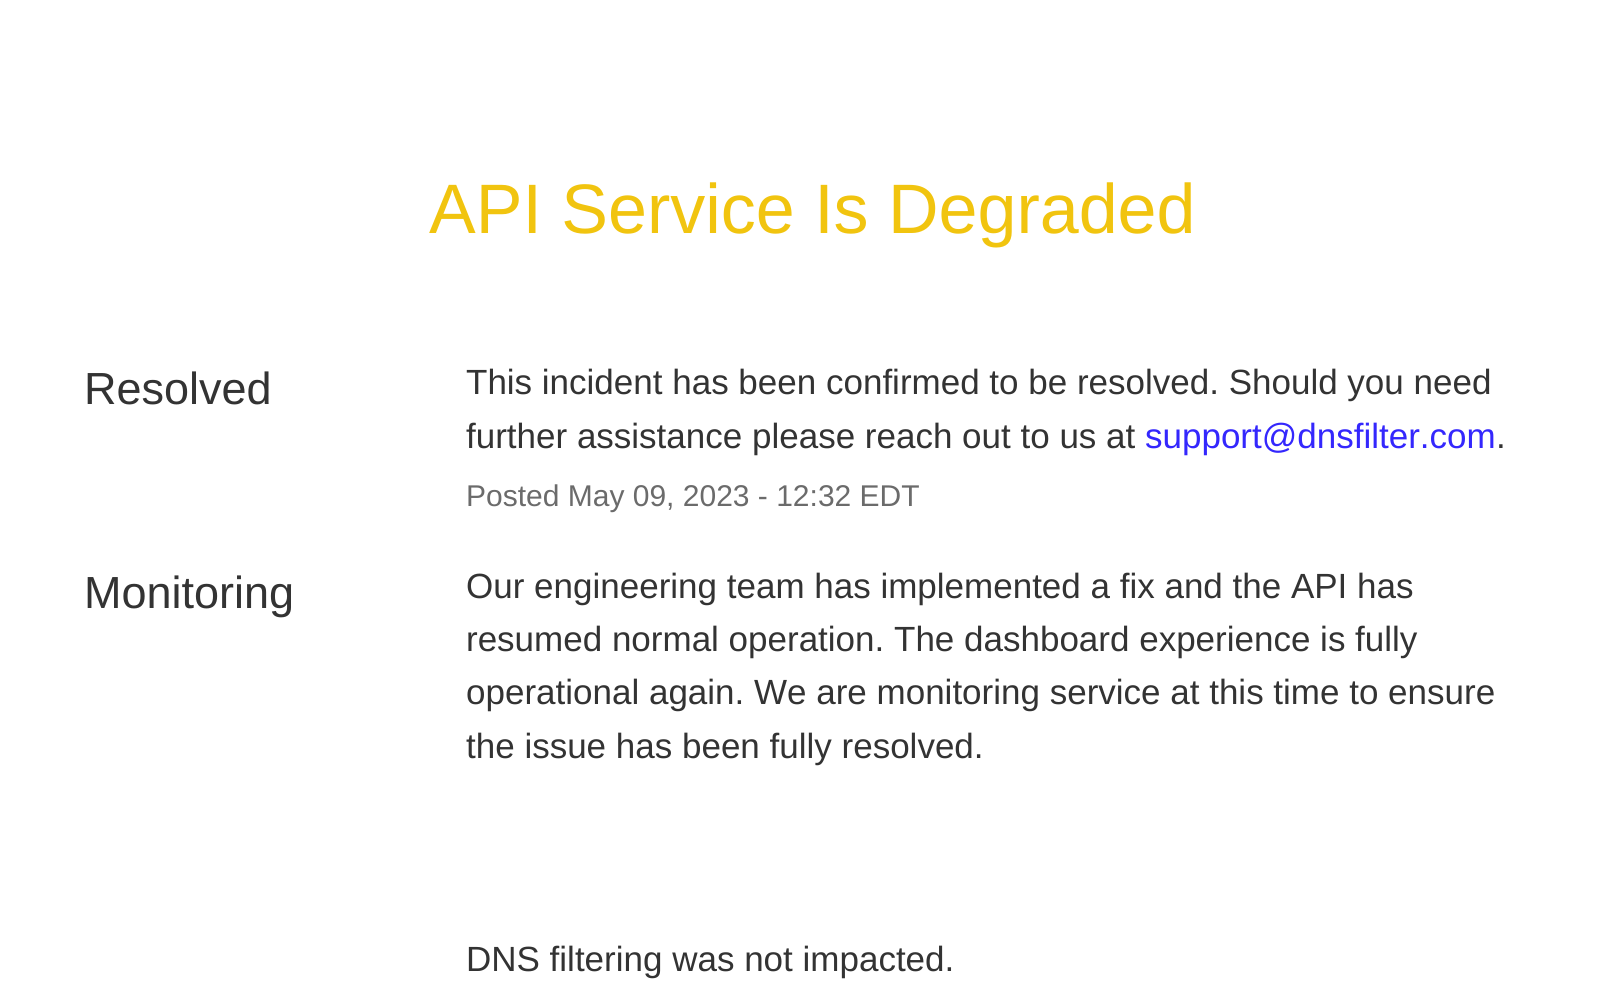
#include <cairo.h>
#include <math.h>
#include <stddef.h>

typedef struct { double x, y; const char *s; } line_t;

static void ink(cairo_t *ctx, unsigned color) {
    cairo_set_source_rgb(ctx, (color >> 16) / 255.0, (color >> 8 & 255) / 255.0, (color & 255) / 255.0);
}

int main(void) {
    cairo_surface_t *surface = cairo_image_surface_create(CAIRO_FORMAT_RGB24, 1623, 985);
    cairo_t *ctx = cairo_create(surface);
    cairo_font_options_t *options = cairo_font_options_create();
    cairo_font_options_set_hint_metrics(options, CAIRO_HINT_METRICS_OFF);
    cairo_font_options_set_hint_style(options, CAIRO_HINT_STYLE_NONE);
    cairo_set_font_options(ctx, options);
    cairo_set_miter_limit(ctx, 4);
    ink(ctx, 0xFFFFFF);
    cairo_paint(ctx);
    cairo_select_font_face(ctx, "Liberation Sans", CAIRO_FONT_SLANT_NORMAL, CAIRO_FONT_WEIGHT_NORMAL);
    cairo_set_font_size(ctx, 70);
    ink(ctx, 0xF1C40F);
    cairo_move_to(ctx, 429, 233);
    cairo_show_text(ctx, "API Service Is Degraded");
    cairo_set_font_size(ctx, 45);
    ink(ctx, 0x333333);
    cairo_move_to(ctx, 84, 404);
    cairo_show_text(ctx, "Resolved");
    cairo_set_font_size(ctx, 35);
    cairo_move_to(ctx, 466, 394);
    cairo_show_text(ctx, "This incident has been confirmed to be resolved. Should you need");
    cairo_move_to(ctx, 466, 448);
    cairo_show_text(ctx, "further assistance please reach out to us at");
    ink(ctx, 0x3427FD);
    cairo_move_to(ctx, 1145, 448);
    cairo_show_text(ctx, "support@dnsfilter.com");
    ink(ctx, 0x333333);
    cairo_move_to(ctx, 1496, 448);
    cairo_show_text(ctx, ".");
    cairo_set_font_size(ctx, 30);
    ink(ctx, 0x6B6B6B);
    cairo_move_to(ctx, 466, 506);
    cairo_show_text(ctx, "Posted May 09, 2023 - 12:32 EDT");
    cairo_set_font_size(ctx, 45);
    ink(ctx, 0x333333);
    cairo_move_to(ctx, 84, 608);
    cairo_show_text(ctx, "Monitoring");
    cairo_set_font_size(ctx, 35);
    {
        static const line_t items[] = {
            {466, 598, "Our engineering team has implemented a fix and the API has"},
            {466, 651, "resumed normal operation. The dashboard experience is fully"},
            {466, 704, "operational again. We are monitoring service at this time to ensure"},
            {466, 758, "the issue has been fully resolved."},
            {466, 971, "DNS filtering was not impacted."},
        };
        for (size_t i = 0; i < sizeof items / sizeof *items; i++) {
            cairo_move_to(ctx, items[i].x, items[i].y);
            cairo_show_text(ctx, items[i].s);
        }
    }
    cairo_surface_write_to_png(surface, "image.png");
    cairo_font_options_destroy(options);
    cairo_destroy(ctx);
    cairo_surface_destroy(surface);
    return 0;
}
